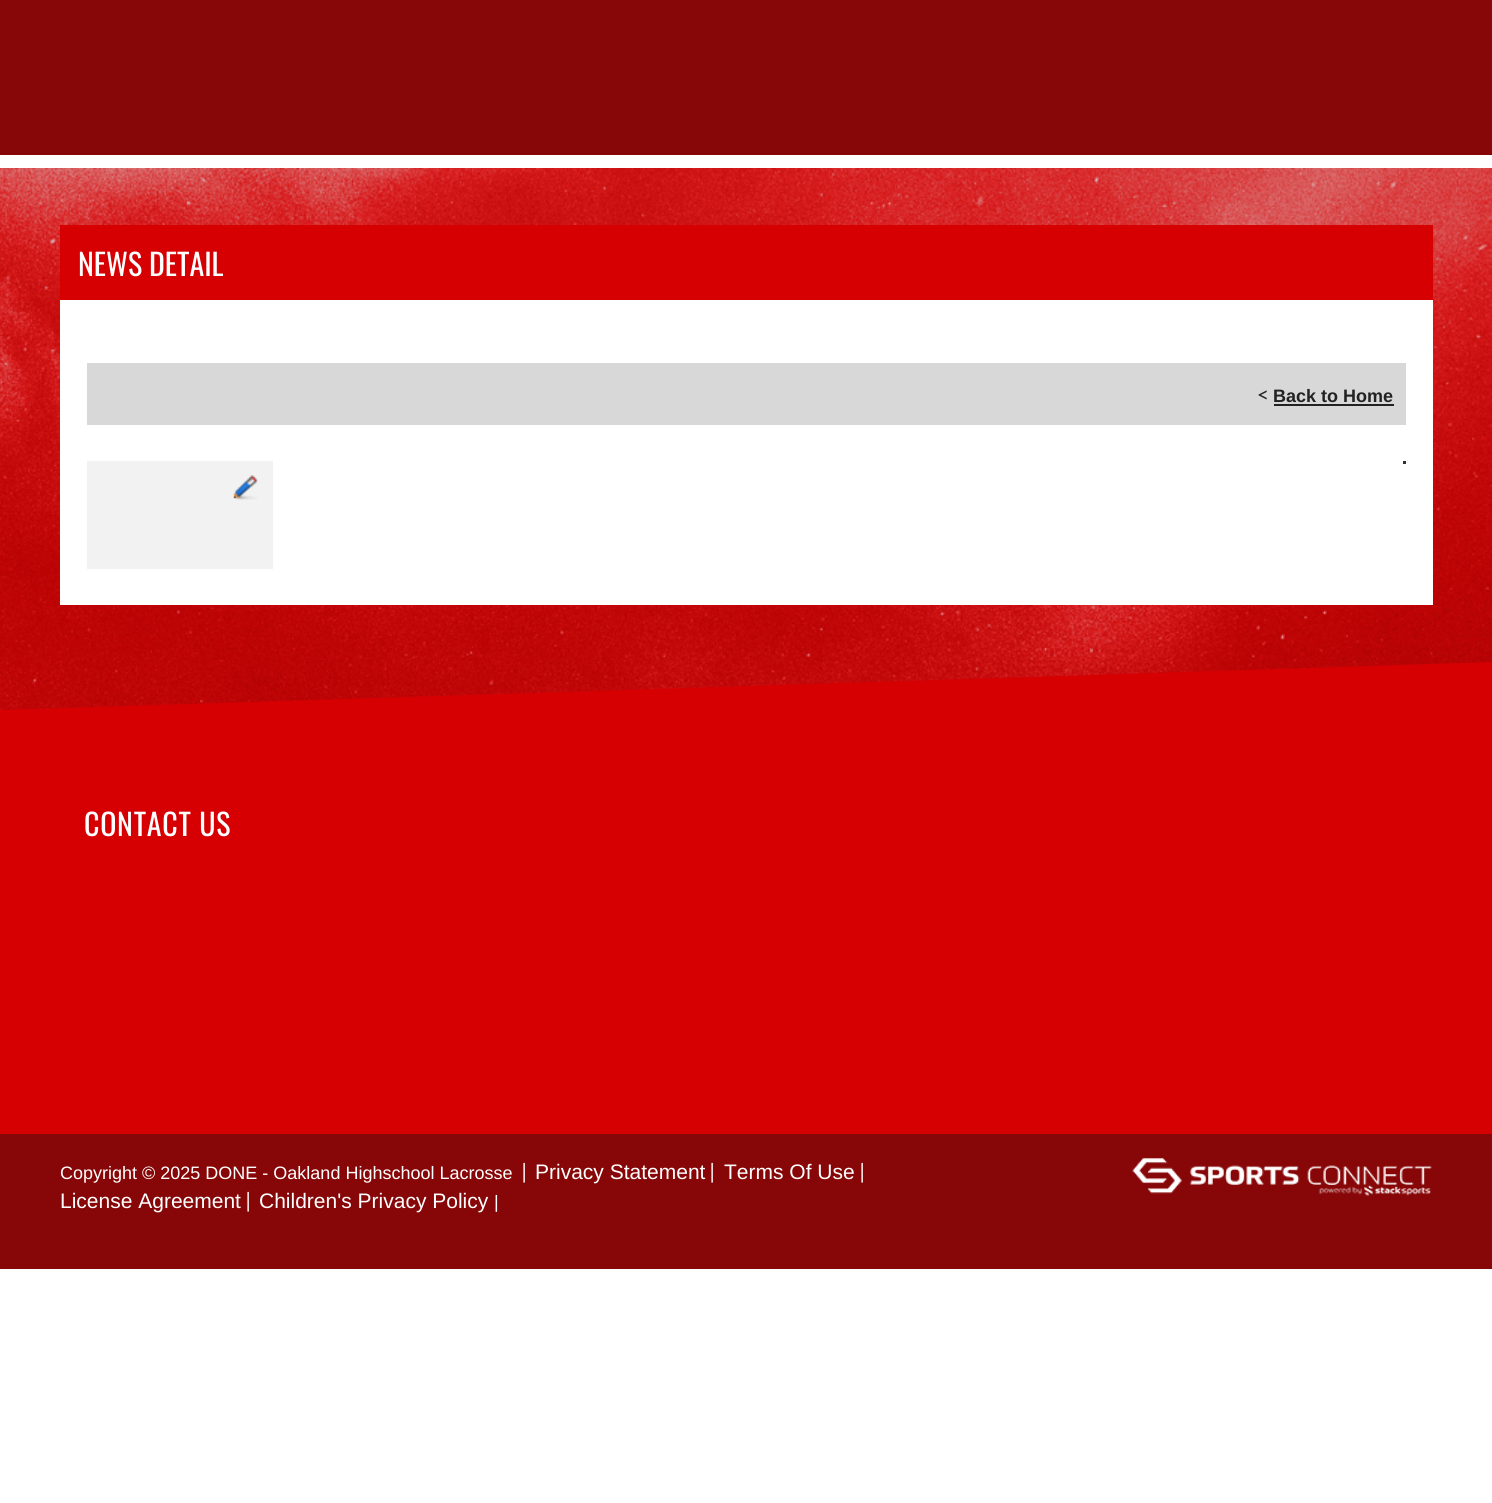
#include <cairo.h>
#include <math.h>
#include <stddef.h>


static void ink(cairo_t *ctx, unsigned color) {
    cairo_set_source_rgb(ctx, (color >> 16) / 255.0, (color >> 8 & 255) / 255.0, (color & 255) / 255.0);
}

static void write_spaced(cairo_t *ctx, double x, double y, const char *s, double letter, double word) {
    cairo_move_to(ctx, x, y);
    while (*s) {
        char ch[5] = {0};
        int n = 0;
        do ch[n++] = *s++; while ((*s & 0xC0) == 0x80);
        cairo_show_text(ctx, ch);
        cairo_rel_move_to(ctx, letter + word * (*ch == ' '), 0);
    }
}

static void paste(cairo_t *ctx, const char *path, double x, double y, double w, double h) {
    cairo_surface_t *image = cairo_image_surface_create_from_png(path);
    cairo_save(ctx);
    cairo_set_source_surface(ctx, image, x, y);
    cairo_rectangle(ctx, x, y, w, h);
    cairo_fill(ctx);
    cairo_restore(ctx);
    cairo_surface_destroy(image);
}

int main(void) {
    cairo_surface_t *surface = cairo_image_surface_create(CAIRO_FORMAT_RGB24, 1492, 1503);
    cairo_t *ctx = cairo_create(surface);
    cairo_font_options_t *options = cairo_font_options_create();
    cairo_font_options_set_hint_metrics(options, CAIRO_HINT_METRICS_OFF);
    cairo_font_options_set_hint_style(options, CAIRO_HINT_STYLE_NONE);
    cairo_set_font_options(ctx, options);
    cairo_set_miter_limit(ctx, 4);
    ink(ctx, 0xFFFFFF);
    cairo_paint(ctx);
    ink(ctx, 0x870708);
    cairo_rectangle(ctx, 0, 0, 1492, 155);
    cairo_fill(ctx);
    paste(ctx, "media/1.png", 0, 168, 1492, 542);
    ink(ctx, 0xD60002);
    cairo_rectangle(ctx, 60, 225, 1373, 75);
    cairo_fill(ctx);
    cairo_select_font_face(ctx, "Oswald", CAIRO_FONT_SLANT_NORMAL, CAIRO_FONT_WEIGHT_NORMAL);
    cairo_set_font_size(ctx, 30);
    ink(ctx, 0xFFFFFF);
    cairo_move_to(ctx, 78, 276);
    cairo_show_text(ctx, "NEWS DETAIL");
    cairo_rectangle(ctx, 60, 300, 1373, 305);
    cairo_fill(ctx);
    ink(ctx, 0xD8D8D8);
    cairo_rectangle(ctx, 87, 363, 1319, 62);
    cairo_fill(ctx);
    cairo_select_font_face(ctx, "Lato", CAIRO_FONT_SLANT_NORMAL, CAIRO_FONT_WEIGHT_NORMAL);
    cairo_set_font_size(ctx, 21);
    ink(ctx, 0x222222);
    cairo_move_to(ctx, 1257, 402);
    cairo_show_text(ctx, "<");
    cairo_select_font_face(ctx, "Liberation Sans", CAIRO_FONT_SLANT_NORMAL, CAIRO_FONT_WEIGHT_BOLD);
    cairo_set_font_size(ctx, 18);
    cairo_move_to(ctx, 1273, 402);
    cairo_show_text(ctx, "Back to Home");
    cairo_rectangle(ctx, 1274, 404, 120, 2);
    cairo_fill(ctx);
    ink(ctx, 0xF2F2F2);
    cairo_rectangle(ctx, 87, 461, 186, 108);
    cairo_fill(ctx);
    paste(ctx, "media/2.png", 233, 475, 25, 25);
    ink(ctx, 0x303030);
    cairo_rectangle(ctx, 1403, 461, 3, 3);
    cairo_fill(ctx);
    ink(ctx, 0xD60002);
    cairo_new_path(ctx);
    cairo_move_to(ctx, 0, 710);
    cairo_line_to(ctx, 0, 1134);
    cairo_line_to(ctx, 1492, 1134);
    cairo_line_to(ctx, 1492, 662);
    cairo_close_path(ctx);
    cairo_fill(ctx);
    cairo_select_font_face(ctx, "Oswald", CAIRO_FONT_SLANT_NORMAL, CAIRO_FONT_WEIGHT_NORMAL);
    cairo_set_font_size(ctx, 30);
    ink(ctx, 0xFFFFFF);
    write_spaced(ctx, 84, 836, "CONTACT US", 0.75, 0);
    ink(ctx, 0x870708);
    cairo_rectangle(ctx, 0, 1134, 1492, 135);
    cairo_fill(ctx);
    cairo_select_font_face(ctx, "Liberation Sans", CAIRO_FONT_SLANT_NORMAL, CAIRO_FONT_WEIGHT_NORMAL);
    cairo_set_font_size(ctx, 18);
    ink(ctx, 0xFFFFFF);
    cairo_move_to(ctx, 60, 1179);
    cairo_show_text(ctx, "Copyright © 2025 DONE - Oakland Highschool Lacrosse");
    cairo_select_font_face(ctx, "Lato", CAIRO_FONT_SLANT_NORMAL, CAIRO_FONT_WEIGHT_NORMAL);
    cairo_set_font_size(ctx, 21);
    cairo_move_to(ctx, 521, 1179);
    cairo_show_text(ctx, "|");
    cairo_select_font_face(ctx, "Liberation Sans", CAIRO_FONT_SLANT_NORMAL, CAIRO_FONT_WEIGHT_NORMAL);
    cairo_move_to(ctx, 535, 1179);
    cairo_show_text(ctx, "Privacy Statement");
    cairo_select_font_face(ctx, "Lato", CAIRO_FONT_SLANT_NORMAL, CAIRO_FONT_WEIGHT_NORMAL);
    cairo_move_to(ctx, 709, 1179);
    cairo_show_text(ctx, "|");
    cairo_select_font_face(ctx, "Liberation Sans", CAIRO_FONT_SLANT_NORMAL, CAIRO_FONT_WEIGHT_NORMAL);
    cairo_move_to(ctx, 724, 1179);
    cairo_show_text(ctx, "Terms Of Use");
    cairo_select_font_face(ctx, "Lato", CAIRO_FONT_SLANT_NORMAL, CAIRO_FONT_WEIGHT_NORMAL);
    cairo_move_to(ctx, 859, 1179);
    cairo_show_text(ctx, "|");
    cairo_select_font_face(ctx, "Liberation Sans", CAIRO_FONT_SLANT_NORMAL, CAIRO_FONT_WEIGHT_NORMAL);
    cairo_move_to(ctx, 60, 1208);
    cairo_show_text(ctx, "License Agreement");
    cairo_select_font_face(ctx, "Lato", CAIRO_FONT_SLANT_NORMAL, CAIRO_FONT_WEIGHT_NORMAL);
    cairo_move_to(ctx, 245, 1208);
    cairo_show_text(ctx, "|");
    cairo_select_font_face(ctx, "Liberation Sans", CAIRO_FONT_SLANT_NORMAL, CAIRO_FONT_WEIGHT_NORMAL);
    cairo_move_to(ctx, 259, 1208);
    cairo_show_text(ctx, "Children's Privacy Policy");
    cairo_set_font_size(ctx, 18);
    cairo_move_to(ctx, 494, 1208);
    cairo_show_text(ctx, "|");
    paste(ctx, "media/3.png", 1132, 1158, 300, 38);
    cairo_surface_write_to_png(surface, "image.png");
    cairo_font_options_destroy(options);
    cairo_destroy(ctx);
    cairo_surface_destroy(surface);
    return 0;
}
